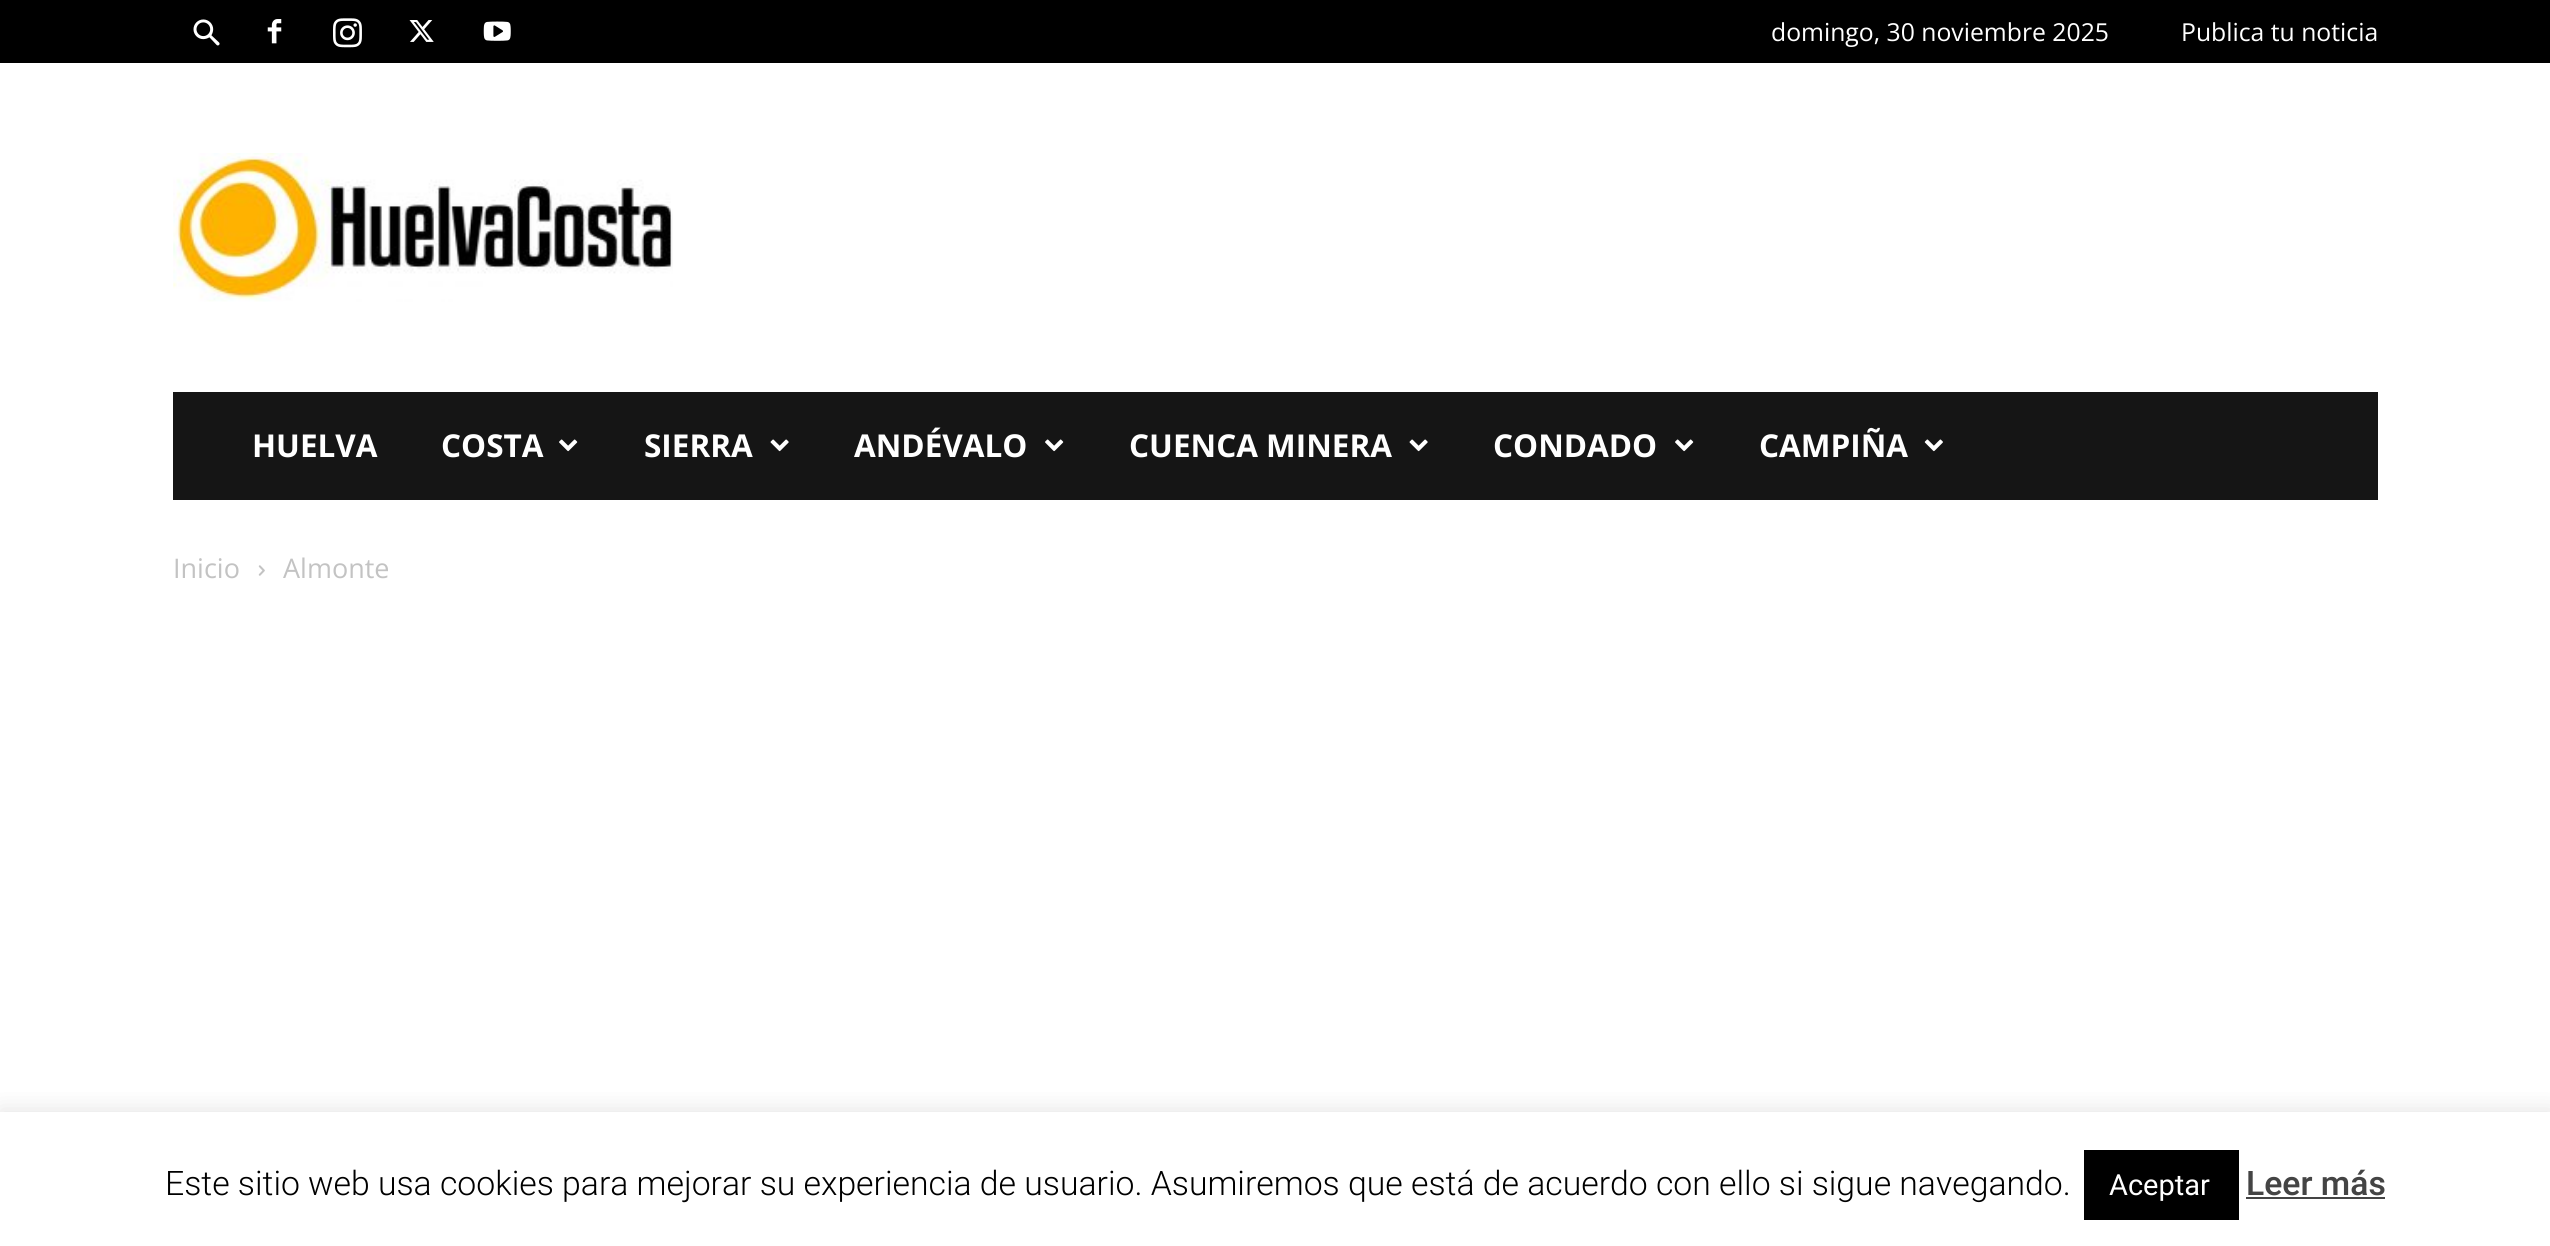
#include <cairo.h>
#include <math.h>
#include <stddef.h>


static void ink(cairo_t *ctx, unsigned color) {
    cairo_set_source_rgb(ctx, (color >> 16) / 255.0, (color >> 8 & 255) / 255.0, (color & 255) / 255.0);
}

static void round_path(cairo_t *ctx, double x, double y, double w, double h, double r) {
    cairo_new_sub_path(ctx);
    cairo_arc(ctx, x + w - r, y + h - r, r, 0, M_PI / 2);
    cairo_arc(ctx, x + r, y + h - r, r, M_PI / 2, M_PI);
    cairo_arc(ctx, x + r, y + r, r, M_PI, 1.5 * M_PI);
    cairo_arc(ctx, x + w - r, y + r, r, 1.5 * M_PI, 2 * M_PI);
    cairo_close_path(ctx);
}

static void blur_box(cairo_t *ctx, double x, double y, double w, double h, double r, double blur, double alpha) {
    cairo_push_group_with_content(ctx, CAIRO_CONTENT_ALPHA);
    cairo_set_operator(ctx, CAIRO_OPERATOR_SOURCE);
    for (int i = 15; i >= -15 && fmin(w, h) + blur * i / 3 > 0; i -= 2) {
        double e = blur * i / 6;
        cairo_set_source_rgba(ctx, 0, 0, 0, alpha * erfc((i - 1) / 8.5) / 2);
        round_path(ctx, x - e, y - e, w + 2 * e, h + 2 * e, fmax(0, fmin(r + e + blur * .6, fmin(w, h) / 2 + e)));
        cairo_fill(ctx);
    }
    cairo_pattern_t *soft = cairo_pop_group(ctx);
    cairo_mask(ctx, soft);
    cairo_pattern_destroy(soft);
}

static void paste(cairo_t *ctx, const char *path, double x, double y, double w, double h) {
    cairo_surface_t *image = cairo_image_surface_create_from_png(path);
    cairo_save(ctx);
    cairo_set_source_surface(ctx, image, x, y);
    cairo_rectangle(ctx, x, y, w, h);
    cairo_fill(ctx);
    cairo_restore(ctx);
    cairo_surface_destroy(image);
}

int main(void) {
    cairo_surface_t *surface = cairo_image_surface_create(CAIRO_FORMAT_RGB24, 2550, 1246);
    cairo_t *ctx = cairo_create(surface);
    cairo_font_options_t *options = cairo_font_options_create();
    cairo_font_options_set_hint_metrics(options, CAIRO_HINT_METRICS_OFF);
    cairo_font_options_set_hint_style(options, CAIRO_HINT_STYLE_NONE);
    cairo_set_font_options(ctx, options);
    cairo_set_miter_limit(ctx, 4);
    ink(ctx, 0xFFFFFF);
    cairo_paint(ctx);
    ink(ctx, 0x000000);
    cairo_rectangle(ctx, 0, 0, 2550, 63);
    cairo_fill(ctx);
    paste(ctx, "media/1.png", 193, 19, 27, 27);
    paste(ctx, "media/2.png", 267, 19, 15, 25);
    paste(ctx, "media/3.png", 333, 18, 29, 30);
    paste(ctx, "media/4.png", 409, 20, 25, 22);
    paste(ctx, "media/5.png", 483, 21, 28, 20);
    cairo_select_font_face(ctx, "Open Sans", CAIRO_FONT_SLANT_NORMAL, CAIRO_FONT_WEIGHT_NORMAL);
    cairo_set_font_size(ctx, 24.75);
    ink(ctx, 0xFFFFFF);
    cairo_move_to(ctx, 1771, 41);
    cairo_show_text(ctx, "domingo, 30 noviembre 2025");
    cairo_move_to(ctx, 2181, 41);
    cairo_show_text(ctx, "Publica tu noticia");
    paste(ctx, "media/6.png", 173, 153, 500, 149);
    ink(ctx, 0x151515);
    cairo_rectangle(ctx, 173, 392, 2205, 108);
    cairo_fill(ctx);
    cairo_select_font_face(ctx, "Open Sans", CAIRO_FONT_SLANT_NORMAL, CAIRO_FONT_WEIGHT_BOLD);
    cairo_set_font_size(ctx, 31.5);
    ink(ctx, 0xFFFFFF);
    cairo_move_to(ctx, 252, 457);
    cairo_show_text(ctx, "HUELVA");
    cairo_move_to(ctx, 441, 457);
    cairo_show_text(ctx, "COSTA");
    paste(ctx, "media/7.png", 559, 439, 19, 13);
    cairo_move_to(ctx, 644, 457);
    cairo_show_text(ctx, "SIERRA");
    paste(ctx, "media/8.png", 770, 439, 19, 13);
    cairo_move_to(ctx, 854, 457);
    cairo_show_text(ctx, "ANDÉVALO");
    paste(ctx, "media/7.png", 1045, 439, 19, 13);
    cairo_move_to(ctx, 1129, 457);
    cairo_show_text(ctx, "CUENCA MINERA");
    paste(ctx, "media/8.png", 1409, 439, 19, 13);
    cairo_move_to(ctx, 1493, 457);
    cairo_show_text(ctx, "CONDADO");
    paste(ctx, "media/7.png", 1675, 439, 19, 13);
    cairo_move_to(ctx, 1759, 457);
    cairo_show_text(ctx, "CAMPIÑA");
    paste(ctx, "media/9.png", 1924, 439, 19, 13);
    cairo_select_font_face(ctx, "Open Sans", CAIRO_FONT_SLANT_NORMAL, CAIRO_FONT_WEIGHT_NORMAL);
    cairo_set_font_size(ctx, 27);
    ink(ctx, 0xC3C3C3);
    cairo_move_to(ctx, 173, 578);
    cairo_show_text(ctx, "Inicio");
    paste(ctx, "media/10.png", 258, 565, 7, 11);
    cairo_move_to(ctx, 283, 578);
    cairo_show_text(ctx, "Almonte");
    cairo_save(ctx);
    cairo_rectangle(ctx, 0, 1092, 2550, 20);
    cairo_clip(ctx);
    ink(ctx, 0xACABAB);
    blur_box(ctx, 0, 1109, 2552, 135, 0, 11, 0.3);
    cairo_restore(ctx);
    cairo_select_font_face(ctx, "Roboto Light", CAIRO_FONT_SLANT_NORMAL, CAIRO_FONT_WEIGHT_NORMAL);
    cairo_set_font_size(ctx, 33.75);
    ink(ctx, 0x000000);
    cairo_move_to(ctx, 165, 1195);
    cairo_show_text(ctx, "Este sitio web usa cookies para mejorar su experiencia de usuario. Asumiremos que está de acuerdo con ello si sigue navegando.");
    cairo_rectangle(ctx, 2084, 1150, 155, 70);
    cairo_fill(ctx);
    cairo_select_font_face(ctx, "Roboto", CAIRO_FONT_SLANT_NORMAL, CAIRO_FONT_WEIGHT_NORMAL);
    cairo_set_font_size(ctx, 29);
    ink(ctx, 0xFFFFFF);
    cairo_move_to(ctx, 2109, 1195);
    cairo_show_text(ctx, "Aceptar");
    cairo_select_font_face(ctx, "Roboto Medium", CAIRO_FONT_SLANT_NORMAL, CAIRO_FONT_WEIGHT_NORMAL);
    cairo_set_font_size(ctx, 33.75);
    ink(ctx, 0x444444);
    cairo_move_to(ctx, 2246, 1195);
    cairo_show_text(ctx, "Leer más");
    cairo_rectangle(ctx, 2246, 1197, 139, 2);
    cairo_fill(ctx);
    cairo_surface_write_to_png(surface, "image.png");
    cairo_font_options_destroy(options);
    cairo_destroy(ctx);
    cairo_surface_destroy(surface);
    return 0;
}
